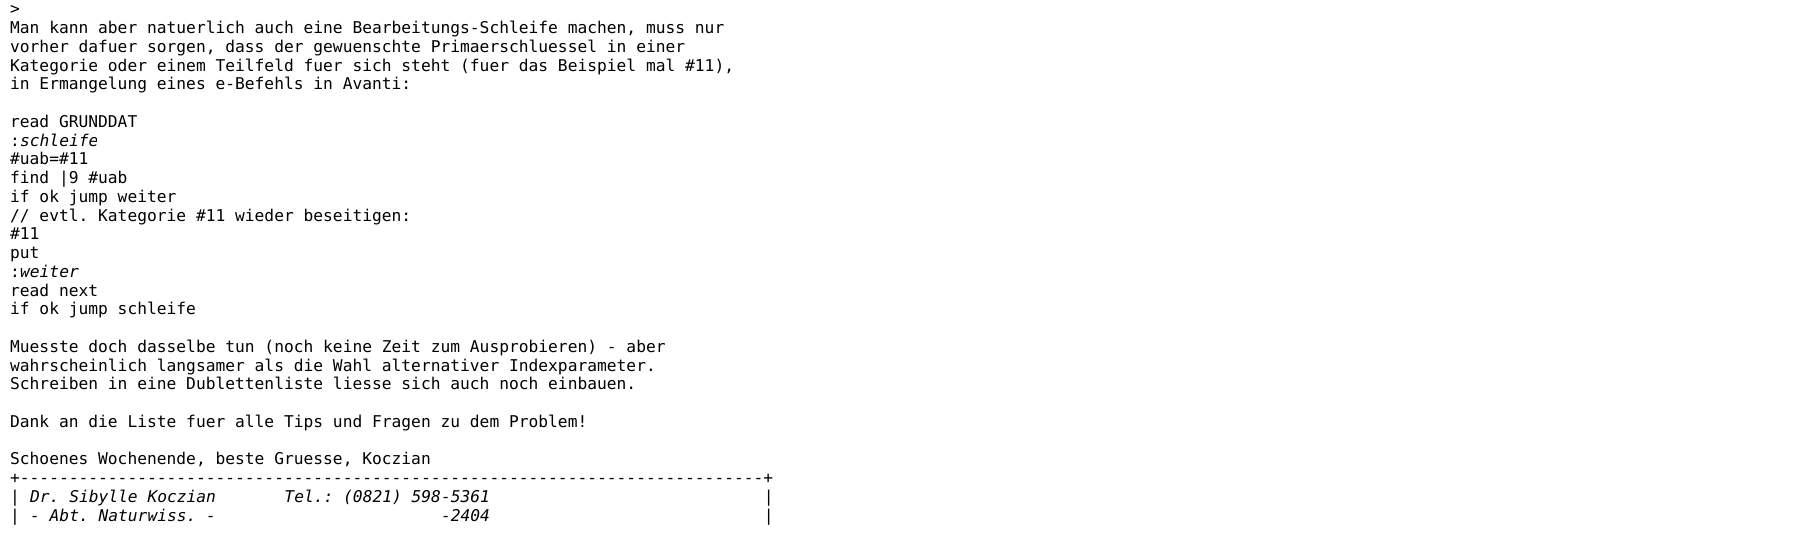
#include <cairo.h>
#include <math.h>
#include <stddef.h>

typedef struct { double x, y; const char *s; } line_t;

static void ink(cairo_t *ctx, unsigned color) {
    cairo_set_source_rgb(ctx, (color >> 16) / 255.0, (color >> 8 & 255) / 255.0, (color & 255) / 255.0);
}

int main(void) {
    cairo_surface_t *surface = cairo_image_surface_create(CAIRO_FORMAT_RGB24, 1804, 535);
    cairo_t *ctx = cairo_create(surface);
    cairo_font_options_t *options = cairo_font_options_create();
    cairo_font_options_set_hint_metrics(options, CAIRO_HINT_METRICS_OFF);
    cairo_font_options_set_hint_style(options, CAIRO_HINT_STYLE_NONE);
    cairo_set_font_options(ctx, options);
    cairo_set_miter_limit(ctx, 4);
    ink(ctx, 0xFFFFFF);
    cairo_paint(ctx);
    cairo_select_font_face(ctx, "DejaVu Sans Mono", CAIRO_FONT_SLANT_NORMAL, CAIRO_FONT_WEIGHT_NORMAL);
    cairo_set_font_size(ctx, 16.25);
    ink(ctx, 0x000000);
    {
        static const line_t items[] = {
            {10, 14, ">"},
            {10, 33, "Man kann aber natuerlich auch eine Bearbeitungs-Schleife machen, muss nur"},
            {10, 52, "vorher dafuer sorgen, dass der gewuenschte Primaerschluessel in einer"},
            {10, 71, "Kategorie oder einem Teilfeld fuer sich steht (fuer das Beispiel mal #11),"},
            {10, 89, "in Ermangelung eines e-Befehls in Avanti:"},
            {10, 127, "read GRUNDDAT"},
            {10, 146, ":"},
        };
        for (size_t i = 0; i < sizeof items / sizeof *items; i++) {
            cairo_move_to(ctx, items[i].x, items[i].y);
            cairo_show_text(ctx, items[i].s);
        }
    }
    cairo_select_font_face(ctx, "DejaVu Sans Mono", CAIRO_FONT_SLANT_ITALIC, CAIRO_FONT_WEIGHT_NORMAL);
    cairo_move_to(ctx, 20, 146);
    cairo_show_text(ctx, "schleife");
    cairo_select_font_face(ctx, "DejaVu Sans Mono", CAIRO_FONT_SLANT_NORMAL, CAIRO_FONT_WEIGHT_NORMAL);
    {
        static const line_t items[] = {
            {10, 164, "#uab=#11"},
            {10, 183, "find |9 #uab"},
            {10, 202, "if ok jump weiter"},
            {10, 221, "// evtl. Kategorie #11 wieder beseitigen:"},
            {10, 239, "#11"},
            {10, 258, "put"},
            {10, 277, ":"},
        };
        for (size_t i = 0; i < sizeof items / sizeof *items; i++) {
            cairo_move_to(ctx, items[i].x, items[i].y);
            cairo_show_text(ctx, items[i].s);
        }
    }
    cairo_select_font_face(ctx, "DejaVu Sans Mono", CAIRO_FONT_SLANT_ITALIC, CAIRO_FONT_WEIGHT_NORMAL);
    cairo_move_to(ctx, 20, 277);
    cairo_show_text(ctx, "weiter");
    cairo_select_font_face(ctx, "DejaVu Sans Mono", CAIRO_FONT_SLANT_NORMAL, CAIRO_FONT_WEIGHT_NORMAL);
    {
        static const line_t items[] = {
            {10, 296, "read next"},
            {10, 314, "if ok jump schleife"},
            {10, 352, "Muesste doch dasselbe tun (noch keine Zeit zum Ausprobieren) - aber"},
            {10, 371, "wahrscheinlich langsamer als die Wahl alternativer Indexparameter."},
            {10, 389, "Schreiben in eine Dublettenliste liesse sich auch noch einbauen."},
            {10, 427, "Dank an die Liste fuer alle Tips und Fragen zu dem Problem!"},
            {10, 464, "Schoenes Wochenende, beste Gruesse, Koczian"},
            {10, 483, "+----------------------------------------------------------------------------+"},
            {10, 502, "|"},
        };
        for (size_t i = 0; i < sizeof items / sizeof *items; i++) {
            cairo_move_to(ctx, items[i].x, items[i].y);
            cairo_show_text(ctx, items[i].s);
        }
    }
    cairo_select_font_face(ctx, "DejaVu Sans Mono", CAIRO_FONT_SLANT_ITALIC, CAIRO_FONT_WEIGHT_NORMAL);
    cairo_move_to(ctx, 30, 502);
    cairo_show_text(ctx, "Dr. Sibylle Koczian       Tel.: (0821) 598-5361                            |");
    cairo_select_font_face(ctx, "DejaVu Sans Mono", CAIRO_FONT_SLANT_NORMAL, CAIRO_FONT_WEIGHT_NORMAL);
    cairo_move_to(ctx, 10, 521);
    cairo_show_text(ctx, "|");
    cairo_select_font_face(ctx, "DejaVu Sans Mono", CAIRO_FONT_SLANT_ITALIC, CAIRO_FONT_WEIGHT_NORMAL);
    cairo_move_to(ctx, 30, 521);
    cairo_show_text(ctx, "- Abt. Naturwiss. -                       -2404                            |");
    cairo_surface_write_to_png(surface, "image.png");
    cairo_font_options_destroy(options);
    cairo_destroy(ctx);
    cairo_surface_destroy(surface);
    return 0;
}
